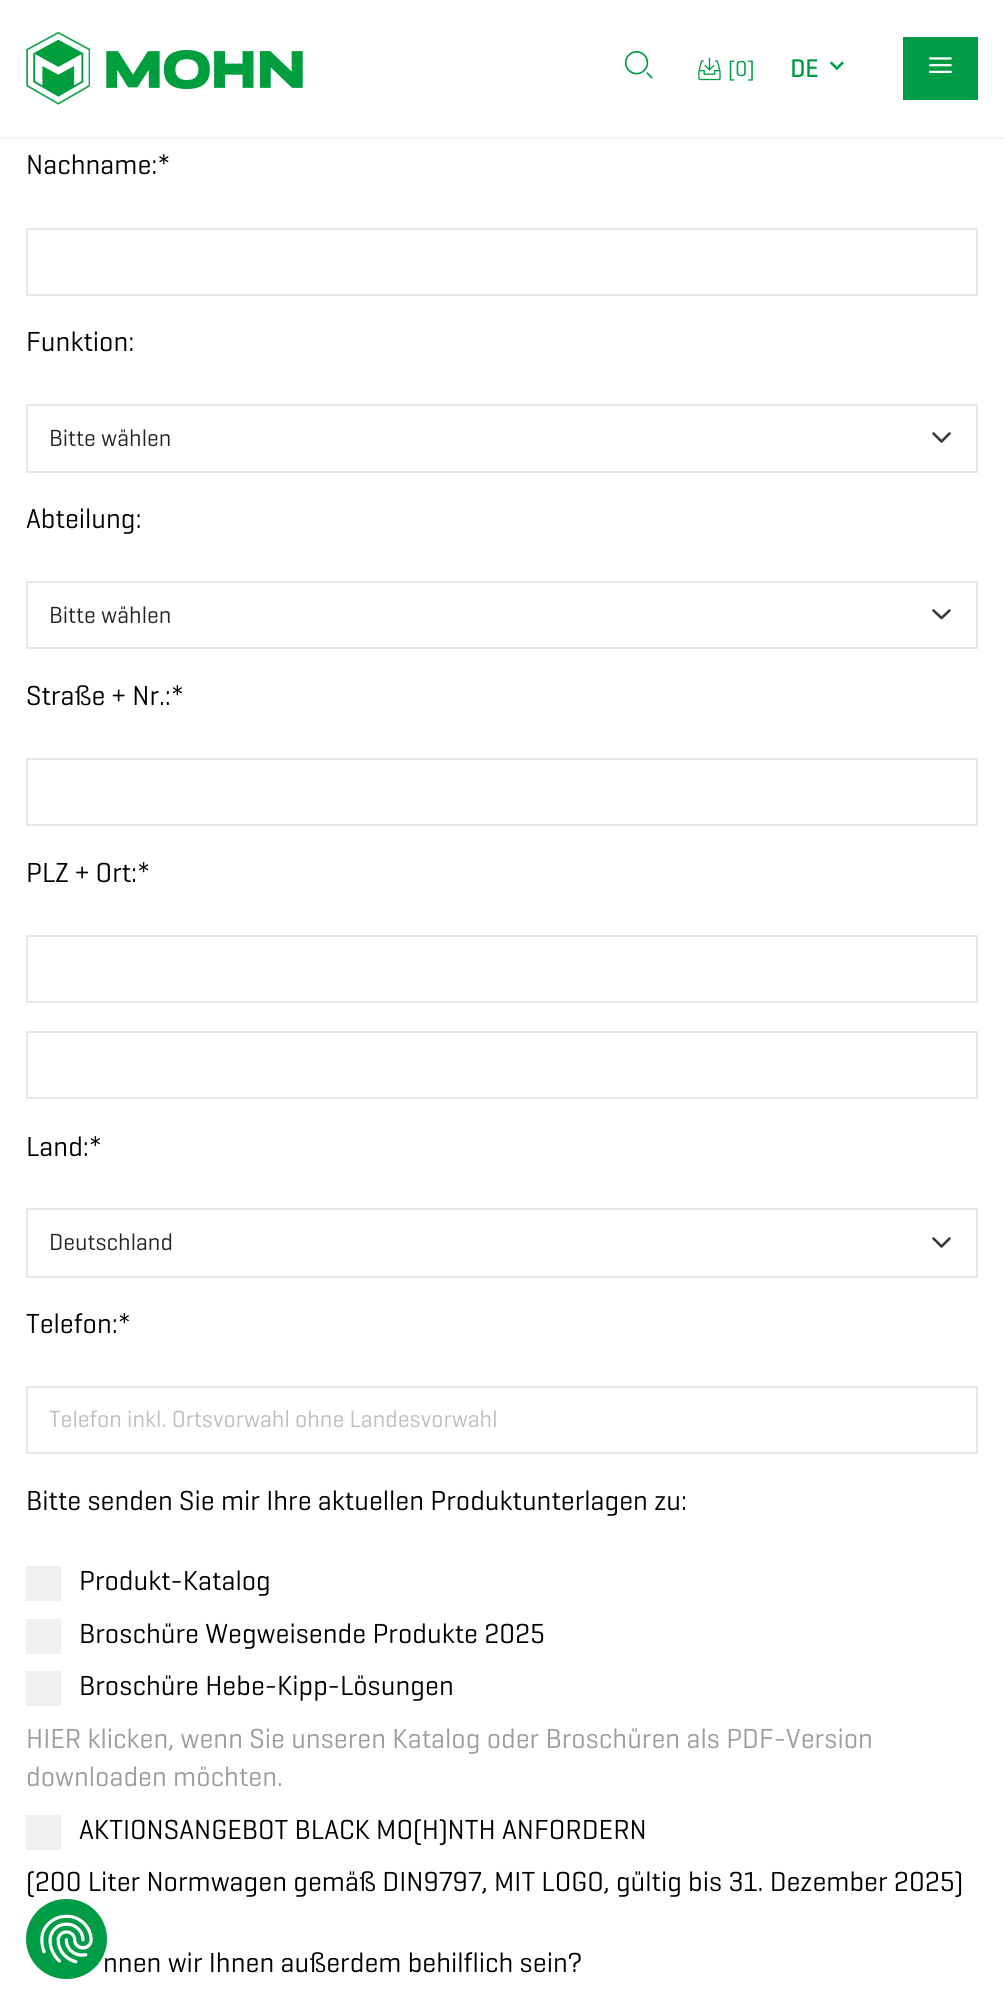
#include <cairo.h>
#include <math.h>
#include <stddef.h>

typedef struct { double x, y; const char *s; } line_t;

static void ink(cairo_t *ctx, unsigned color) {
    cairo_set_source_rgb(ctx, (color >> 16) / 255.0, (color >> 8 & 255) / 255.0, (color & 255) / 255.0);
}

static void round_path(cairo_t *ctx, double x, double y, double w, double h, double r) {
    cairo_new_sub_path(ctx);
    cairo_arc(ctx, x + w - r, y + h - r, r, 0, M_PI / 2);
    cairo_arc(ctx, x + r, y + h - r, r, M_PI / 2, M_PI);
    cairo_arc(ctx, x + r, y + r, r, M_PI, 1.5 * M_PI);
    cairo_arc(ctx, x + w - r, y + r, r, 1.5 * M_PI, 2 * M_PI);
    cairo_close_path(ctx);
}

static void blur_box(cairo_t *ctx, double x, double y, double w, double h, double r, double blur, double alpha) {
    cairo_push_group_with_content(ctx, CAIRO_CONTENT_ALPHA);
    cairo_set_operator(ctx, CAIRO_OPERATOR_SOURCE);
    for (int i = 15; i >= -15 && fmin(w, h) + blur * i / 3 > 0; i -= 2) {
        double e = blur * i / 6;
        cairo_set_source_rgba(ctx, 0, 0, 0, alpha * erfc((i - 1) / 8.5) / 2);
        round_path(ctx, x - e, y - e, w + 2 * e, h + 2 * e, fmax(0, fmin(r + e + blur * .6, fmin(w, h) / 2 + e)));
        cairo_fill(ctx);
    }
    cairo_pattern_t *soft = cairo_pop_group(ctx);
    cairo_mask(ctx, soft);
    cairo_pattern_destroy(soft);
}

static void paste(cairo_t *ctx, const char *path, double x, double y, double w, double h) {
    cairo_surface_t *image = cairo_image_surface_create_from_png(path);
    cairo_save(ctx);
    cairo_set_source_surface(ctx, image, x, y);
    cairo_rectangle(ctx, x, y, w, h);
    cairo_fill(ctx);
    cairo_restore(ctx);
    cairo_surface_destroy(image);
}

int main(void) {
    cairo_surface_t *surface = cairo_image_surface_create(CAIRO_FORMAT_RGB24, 1004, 2004);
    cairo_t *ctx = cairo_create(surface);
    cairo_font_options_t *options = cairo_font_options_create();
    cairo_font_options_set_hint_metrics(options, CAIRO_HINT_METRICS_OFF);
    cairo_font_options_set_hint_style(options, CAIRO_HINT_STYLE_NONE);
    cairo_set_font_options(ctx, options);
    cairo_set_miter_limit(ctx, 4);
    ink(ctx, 0xFFFFFF);
    cairo_paint(ctx);
    ink(ctx, 0xEBEBEB);
    blur_box(ctx, 0, 0, 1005, 138, 0, 2.5, 0.5);
    ink(ctx, 0xFFFFFF);
    cairo_rectangle(ctx, 0, 0, 1004, 138);
    cairo_fill(ctx);
    cairo_set_source_rgba(ctx, 0.922, 0.922, 0.922, 0.5);
    cairo_rectangle(ctx, 0, 137, 1004, 2);
    cairo_fill(ctx);
    paste(ctx, "media/1.png", 26, 32, 277, 73);
    paste(ctx, "media/2.png", 624, 51, 29, 28);
    paste(ctx, "media/3.png", 698, 57, 23, 24);
    cairo_select_font_face(ctx, "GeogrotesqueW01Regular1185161", CAIRO_FONT_SLANT_NORMAL, CAIRO_FONT_WEIGHT_NORMAL);
    cairo_set_font_size(ctx, 22);
    ink(ctx, 0x009B45);
    cairo_move_to(ctx, 728, 76);
    cairo_show_text(ctx, "[0]");
    cairo_select_font_face(ctx, "GeogrotesqueW01Regular1185161", CAIRO_FONT_SLANT_NORMAL, CAIRO_FONT_WEIGHT_BOLD);
    cairo_set_font_size(ctx, 25);
    cairo_move_to(ctx, 790, 77);
    cairo_show_text(ctx, "DE");
    paste(ctx, "media/4.png", 829, 61, 15, 10);
    cairo_rectangle(ctx, 903, 37, 75, 63);
    cairo_fill(ctx);
    paste(ctx, "media/5.png", 929, 57, 23, 16);
    cairo_select_font_face(ctx, "GeogrotesqueW01Regular1185161", CAIRO_FONT_SLANT_NORMAL, CAIRO_FONT_WEIGHT_NORMAL);
    cairo_set_font_size(ctx, 28);
    ink(ctx, 0x000000);
    cairo_move_to(ctx, 26, 174);
    cairo_show_text(ctx, "Nachname:*");
    cairo_rectangle(ctx, 27, 229, 950, 66);
    ink(ctx, 0xE8E8E8);
    cairo_stroke(ctx);
    ink(ctx, 0x000000);
    cairo_move_to(ctx, 26, 351);
    cairo_show_text(ctx, "Funktion:");
    cairo_new_path(ctx);
    cairo_move_to(ctx, 933.5, 433.5);
    cairo_line_to(ctx, 941.5, 441.5);
    cairo_line_to(ctx, 949.5, 433.5);
    ink(ctx, 0x343A40);
    cairo_set_line_width(ctx, 2.6);
    cairo_set_line_cap(ctx, CAIRO_LINE_CAP_ROUND);
    cairo_set_line_join(ctx, CAIRO_LINE_JOIN_ROUND);
    cairo_stroke(ctx);
    cairo_rectangle(ctx, 27, 405, 950, 67);
    ink(ctx, 0xE8E8E8);
    cairo_set_line_width(ctx, 2);
    cairo_set_line_cap(ctx, CAIRO_LINE_CAP_BUTT);
    cairo_set_line_join(ctx, CAIRO_LINE_JOIN_MITER);
    cairo_stroke(ctx);
    cairo_set_font_size(ctx, 23.75);
    ink(ctx, 0x212529);
    cairo_move_to(ctx, 49, 446);
    cairo_show_text(ctx, "Bitte wählen");
    cairo_set_font_size(ctx, 28);
    ink(ctx, 0x000000);
    cairo_move_to(ctx, 26, 528);
    cairo_show_text(ctx, "Abteilung:");
    cairo_new_path(ctx);
    cairo_move_to(ctx, 933.5, 610.5);
    cairo_line_to(ctx, 941.5, 618);
    cairo_line_to(ctx, 949.5, 610.5);
    ink(ctx, 0x343A40);
    cairo_set_line_width(ctx, 2.6);
    cairo_set_line_cap(ctx, CAIRO_LINE_CAP_ROUND);
    cairo_set_line_join(ctx, CAIRO_LINE_JOIN_ROUND);
    cairo_stroke(ctx);
    cairo_rectangle(ctx, 27, 582, 950, 66);
    ink(ctx, 0xE8E8E8);
    cairo_set_line_width(ctx, 2);
    cairo_set_line_cap(ctx, CAIRO_LINE_CAP_BUTT);
    cairo_set_line_join(ctx, CAIRO_LINE_JOIN_MITER);
    cairo_stroke(ctx);
    cairo_set_font_size(ctx, 23.75);
    ink(ctx, 0x212529);
    cairo_move_to(ctx, 49, 623);
    cairo_show_text(ctx, "Bitte wählen");
    cairo_set_font_size(ctx, 28);
    ink(ctx, 0x000000);
    cairo_move_to(ctx, 26, 705);
    cairo_show_text(ctx, "Straße + Nr.:*");
    cairo_rectangle(ctx, 27, 759, 950, 66);
    ink(ctx, 0xE8E8E8);
    cairo_stroke(ctx);
    ink(ctx, 0x000000);
    cairo_move_to(ctx, 26, 882);
    cairo_show_text(ctx, "PLZ + Ort:*");
    cairo_rectangle(ctx, 27, 936, 950, 66);
    ink(ctx, 0xE8E8E8);
    cairo_stroke(ctx);
    cairo_rectangle(ctx, 27, 1032, 950, 66);
    cairo_stroke(ctx);
    ink(ctx, 0x000000);
    cairo_move_to(ctx, 26, 1156);
    cairo_show_text(ctx, "Land:*");
    cairo_new_path(ctx);
    cairo_move_to(ctx, 933.5, 1238.5);
    cairo_line_to(ctx, 941.5, 1246.5);
    cairo_line_to(ctx, 949.5, 1238.5);
    ink(ctx, 0x343A40);
    cairo_set_line_width(ctx, 2.6);
    cairo_set_line_cap(ctx, CAIRO_LINE_CAP_ROUND);
    cairo_set_line_join(ctx, CAIRO_LINE_JOIN_ROUND);
    cairo_stroke(ctx);
    cairo_rectangle(ctx, 27, 1209, 950, 68);
    ink(ctx, 0xE8E8E8);
    cairo_set_line_width(ctx, 2);
    cairo_set_line_cap(ctx, CAIRO_LINE_CAP_BUTT);
    cairo_set_line_join(ctx, CAIRO_LINE_JOIN_MITER);
    cairo_stroke(ctx);
    cairo_set_font_size(ctx, 23.75);
    ink(ctx, 0x212529);
    cairo_move_to(ctx, 49, 1250);
    cairo_show_text(ctx, "Deutschland");
    cairo_set_font_size(ctx, 28);
    ink(ctx, 0x000000);
    cairo_move_to(ctx, 26, 1333);
    cairo_show_text(ctx, "Telefon:*");
    cairo_rectangle(ctx, 27, 1387, 950, 66);
    ink(ctx, 0xE8E8E8);
    cairo_stroke(ctx);
    cairo_set_font_size(ctx, 23.75);
    ink(ctx, 0xBDBDBD);
    cairo_move_to(ctx, 49, 1427);
    cairo_show_text(ctx, "Telefon inkl. Ortsvorwahl ohne Landesvorwahl");
    cairo_set_font_size(ctx, 28);
    ink(ctx, 0x000000);
    cairo_move_to(ctx, 26, 1510);
    cairo_show_text(ctx, "Bitte senden Sie mir Ihre aktuellen Produktunterlagen zu:");
    ink(ctx, 0xF0F0F0);
    cairo_rectangle(ctx, 26, 1566, 35, 35);
    cairo_fill(ctx);
    ink(ctx, 0x000000);
    cairo_move_to(ctx, 79, 1590);
    cairo_show_text(ctx, "Produkt-Katalog");
    ink(ctx, 0xF0F0F0);
    cairo_rectangle(ctx, 26, 1619, 35, 35);
    cairo_fill(ctx);
    ink(ctx, 0x000000);
    cairo_move_to(ctx, 79, 1643);
    cairo_show_text(ctx, "Broschüre Wegweisende Produkte 2025");
    ink(ctx, 0xF0F0F0);
    cairo_rectangle(ctx, 26, 1671, 35, 35);
    cairo_fill(ctx);
    ink(ctx, 0x000000);
    cairo_move_to(ctx, 79, 1695);
    cairo_show_text(ctx, "Broschüre Hebe-Kipp-Lösungen");
    ink(ctx, 0x9D9C9D);
    cairo_move_to(ctx, 26, 1748);
    cairo_show_text(ctx, "HIER klicken, wenn Sie unseren Katalog oder Broschüren als PDF-Version");
    cairo_move_to(ctx, 26, 1786);
    cairo_show_text(ctx, "downloaden möchten.");
    ink(ctx, 0xF0F0F0);
    cairo_rectangle(ctx, 26, 1815, 35, 35);
    cairo_fill(ctx);
    ink(ctx, 0x000000);
    {
        static const line_t items[] = {
            {79, 1839, "AKTIONSANGEBOT BLACK MO(H)NTH ANFORDERN"},
            {26, 1891, "(200 Liter Normwagen gemäß DIN9797, MIT LOGO, gültig bis 31. Dezember 2025)"},
            {103, 1972, "nnen wir Ihnen außerdem behilflich sein?"},
        };
        for (size_t i = 0; i < sizeof items / sizeof *items; i++) {
            cairo_move_to(ctx, items[i].x, items[i].y);
            cairo_show_text(ctx, items[i].s);
        }
    }
    ink(ctx, 0x009B45);
    round_path(ctx, 27, 1900, 79, 78, 39);
    cairo_fill_preserve(ctx);
    cairo_stroke(ctx);
    paste(ctx, "media/6.png", 40, 1914, 53, 50);
    cairo_surface_write_to_png(surface, "image.png");
    cairo_font_options_destroy(options);
    cairo_destroy(ctx);
    cairo_surface_destroy(surface);
    return 0;
}
